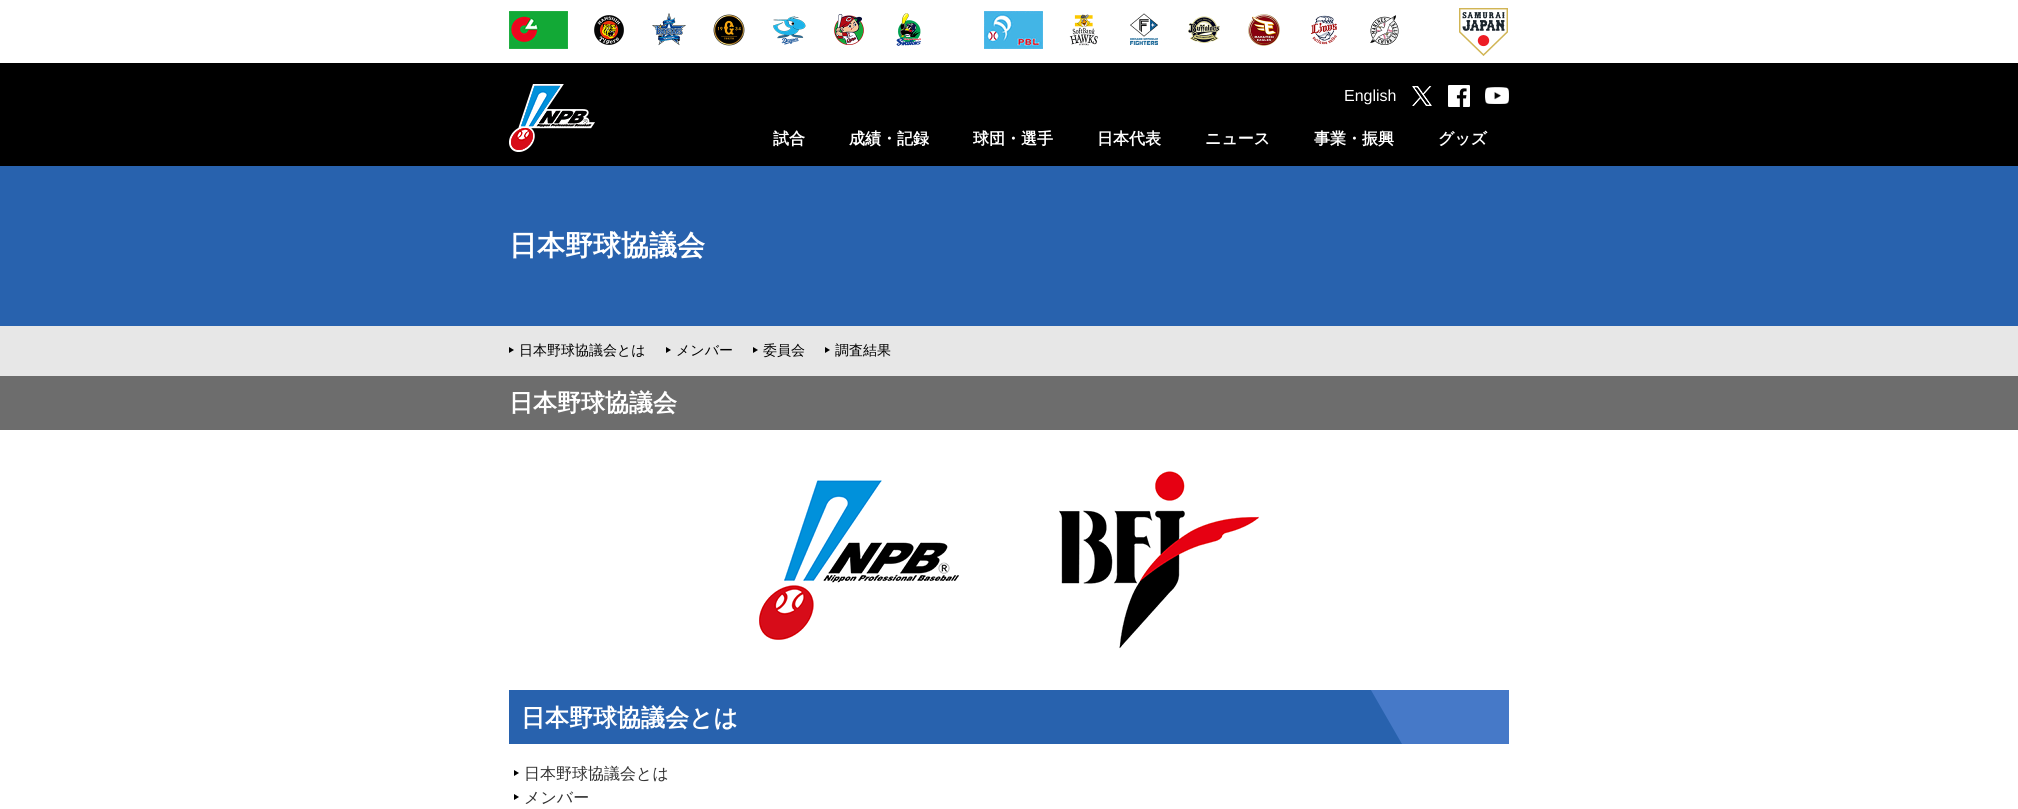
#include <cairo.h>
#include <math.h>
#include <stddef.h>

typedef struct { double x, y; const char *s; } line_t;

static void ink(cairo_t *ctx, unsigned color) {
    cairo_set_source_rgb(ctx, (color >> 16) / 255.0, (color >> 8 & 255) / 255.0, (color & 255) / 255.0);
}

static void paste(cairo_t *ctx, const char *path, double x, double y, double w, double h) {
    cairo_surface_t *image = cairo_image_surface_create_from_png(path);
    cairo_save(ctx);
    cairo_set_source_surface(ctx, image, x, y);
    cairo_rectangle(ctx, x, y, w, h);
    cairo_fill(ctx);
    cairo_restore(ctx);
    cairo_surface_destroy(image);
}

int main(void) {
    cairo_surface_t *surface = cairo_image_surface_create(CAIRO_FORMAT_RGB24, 2018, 809);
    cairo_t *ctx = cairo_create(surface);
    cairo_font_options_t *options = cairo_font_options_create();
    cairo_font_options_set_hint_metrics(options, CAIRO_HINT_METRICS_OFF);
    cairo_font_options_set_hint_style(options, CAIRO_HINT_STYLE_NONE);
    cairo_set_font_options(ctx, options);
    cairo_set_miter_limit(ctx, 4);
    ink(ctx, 0xFFFFFF);
    cairo_paint(ctx);
    paste(ctx, "media/1.png", 509, 11, 59, 38);
    paste(ctx, "media/2.png", 594, 15, 30, 30);
    paste(ctx, "media/3.png", 652, 13, 34, 33);
    paste(ctx, "media/4.png", 713, 14, 32, 32);
    paste(ctx, "media/5.png", 773, 16, 33, 29);
    paste(ctx, "media/6.png", 834, 14, 30, 31);
    paste(ctx, "media/7.png", 896, 13, 25, 33);
    paste(ctx, "media/8.png", 984, 11, 59, 38);
    paste(ctx, "media/9.png", 1069, 14, 29, 32);
    paste(ctx, "media/10.png", 1130, 13, 28, 32);
    paste(ctx, "media/11.png", 1188, 16, 32, 27);
    paste(ctx, "media/12.png", 1248, 14, 32, 32);
    paste(ctx, "media/13.png", 1310, 15, 27, 30);
    paste(ctx, "media/14.png", 1370, 15, 29, 30);
    paste(ctx, "media/15.png", 1459, 8, 49, 48);
    ink(ctx, 0x000000);
    cairo_rectangle(ctx, 0, 63, 2018, 103);
    cairo_fill(ctx);
    paste(ctx, "media/16.png", 509, 84, 86, 68);
    cairo_select_font_face(ctx, "Liberation Sans", CAIRO_FONT_SLANT_NORMAL, CAIRO_FONT_WEIGHT_NORMAL);
    cairo_set_font_size(ctx, 16);
    ink(ctx, 0xFFFFFF);
    cairo_move_to(ctx, 1344, 101);
    cairo_show_text(ctx, "English");
    paste(ctx, "media/17.png", 1412, 86, 20, 20);
    paste(ctx, "media/18.png", 1448, 85, 22, 22);
    paste(ctx, "media/19.png", 1485, 87, 24, 17);
    cairo_select_font_face(ctx, "WenQuanYi Zen Hei", CAIRO_FONT_SLANT_NORMAL, CAIRO_FONT_WEIGHT_BOLD);
    {
        static const line_t items[] = {
            {773, 144, "試合"},
            {849, 144, "成績・記録"},
            {973, 144, "球団・選手"},
            {1097, 144, "日本代表"},
            {1205, 144, "ニュース"},
            {1314, 144, "事業・振興"},
            {1438, 144, "グッズ"},
        };
        for (size_t i = 0; i < sizeof items / sizeof *items; i++) {
            cairo_move_to(ctx, items[i].x, items[i].y);
            cairo_show_text(ctx, items[i].s);
        }
    }
    ink(ctx, 0x2862AE);
    cairo_rectangle(ctx, 0, 166, 2018, 160);
    cairo_fill(ctx);
    cairo_set_font_size(ctx, 28);
    ink(ctx, 0xFFFFFF);
    cairo_move_to(ctx, 509, 255);
    cairo_show_text(ctx, "日本野球協議会");
    ink(ctx, 0xE7E7E7);
    cairo_rectangle(ctx, 0, 326, 2018, 50);
    cairo_fill(ctx);
    paste(ctx, "media/20.png", 509, 347, 5, 6);
    cairo_select_font_face(ctx, "WenQuanYi Zen Hei Medium", CAIRO_FONT_SLANT_NORMAL, CAIRO_FONT_WEIGHT_NORMAL);
    cairo_set_font_size(ctx, 14);
    ink(ctx, 0x000000);
    cairo_move_to(ctx, 519, 355);
    cairo_show_text(ctx, "日本野球協議会とは");
    paste(ctx, "media/20.png", 666, 347, 5, 6);
    cairo_move_to(ctx, 676, 355);
    cairo_show_text(ctx, "メンバー");
    paste(ctx, "media/20.png", 753, 347, 5, 6);
    cairo_move_to(ctx, 763, 355);
    cairo_show_text(ctx, "委員会");
    paste(ctx, "media/20.png", 825, 347, 5, 6);
    cairo_move_to(ctx, 835, 355);
    cairo_show_text(ctx, "調査結果");
    ink(ctx, 0x6D6D6D);
    cairo_rectangle(ctx, 0, 376, 2018, 54);
    cairo_fill(ctx);
    cairo_select_font_face(ctx, "WenQuanYi Zen Hei", CAIRO_FONT_SLANT_NORMAL, CAIRO_FONT_WEIGHT_BOLD);
    cairo_set_font_size(ctx, 24);
    ink(ctx, 0xFFFFFF);
    cairo_move_to(ctx, 509, 411);
    cairo_show_text(ctx, "日本野球協議会");
    paste(ctx, "media/21.png", 759, 480, 200, 160);
    paste(ctx, "media/22.png", 1059, 471, 200, 178);
    ink(ctx, 0x2862AE);
    cairo_rectangle(ctx, 509, 690, 862, 54);
    cairo_fill(ctx);
    paste(ctx, "media/23.png", 1371, 690, 138, 54);
    ink(ctx, 0xFFFFFF);
    cairo_move_to(ctx, 521, 726);
    cairo_show_text(ctx, "日本野球協議会とは");
    paste(ctx, "media/24.png", 514, 770, 5, 6);
    cairo_select_font_face(ctx, "WenQuanYi Zen Hei Medium", CAIRO_FONT_SLANT_NORMAL, CAIRO_FONT_WEIGHT_NORMAL);
    cairo_set_font_size(ctx, 16);
    ink(ctx, 0x333333);
    cairo_move_to(ctx, 524, 779);
    cairo_show_text(ctx, "日本野球協議会とは");
    paste(ctx, "media/24.png", 514, 794, 5, 6);
    cairo_move_to(ctx, 524, 803);
    cairo_show_text(ctx, "メンバー");
    cairo_surface_write_to_png(surface, "image.png");
    cairo_font_options_destroy(options);
    cairo_destroy(ctx);
    cairo_surface_destroy(surface);
    return 0;
}
